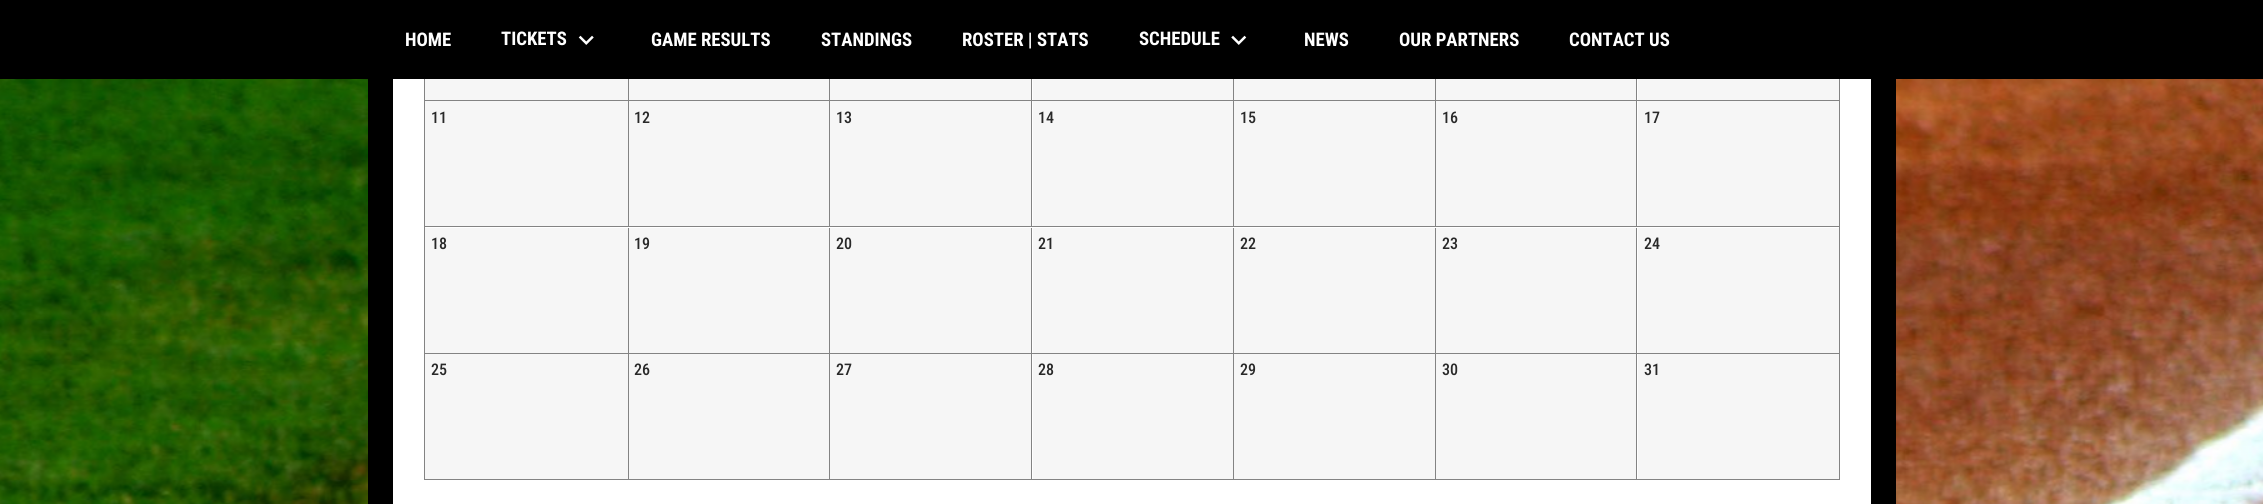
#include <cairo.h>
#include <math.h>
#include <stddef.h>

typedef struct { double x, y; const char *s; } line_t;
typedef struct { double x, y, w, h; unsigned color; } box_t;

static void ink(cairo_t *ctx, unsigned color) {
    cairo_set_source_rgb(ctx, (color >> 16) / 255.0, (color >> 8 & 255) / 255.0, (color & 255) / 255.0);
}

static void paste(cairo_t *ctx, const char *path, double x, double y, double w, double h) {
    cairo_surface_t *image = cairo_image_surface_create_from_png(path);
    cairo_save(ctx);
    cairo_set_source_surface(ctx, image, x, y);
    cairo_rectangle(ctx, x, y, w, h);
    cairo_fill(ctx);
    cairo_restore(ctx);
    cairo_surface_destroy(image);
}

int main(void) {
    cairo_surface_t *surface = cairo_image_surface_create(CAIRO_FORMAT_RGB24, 2263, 504);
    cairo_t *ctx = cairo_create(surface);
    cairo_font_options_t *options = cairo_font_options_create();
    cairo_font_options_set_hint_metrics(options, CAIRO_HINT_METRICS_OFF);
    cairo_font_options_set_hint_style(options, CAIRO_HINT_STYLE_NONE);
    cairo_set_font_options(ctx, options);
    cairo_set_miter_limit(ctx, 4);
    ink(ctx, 0xFFFFFF);
    cairo_paint(ctx);
    paste(ctx, "media/1.png", 0, 79, 2263, 425);
    ink(ctx, 0x000000);
    cairo_rectangle(ctx, 368, 79, 1528, 425);
    cairo_fill(ctx);
    ink(ctx, 0xFFFFFF);
    cairo_rectangle(ctx, 393, 79, 1478, 425);
    cairo_fill(ctx);
    cairo_rectangle(ctx, 424.5, -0.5, 1415, 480);
    ink(ctx, 0x838383);
    cairo_set_line_width(ctx, 1);
    cairo_stroke(ctx);
    ink(ctx, 0x000000);
    cairo_rectangle(ctx, 0, 0, 2263, 79);
    cairo_fill(ctx);
    cairo_select_font_face(ctx, "Roboto Condensed", CAIRO_FONT_SLANT_NORMAL, CAIRO_FONT_WEIGHT_BOLD);
    cairo_set_font_size(ctx, 18.75);
    ink(ctx, 0xFFFFFF);
    cairo_move_to(ctx, 405, 46);
    cairo_show_text(ctx, "HOME");
    cairo_move_to(ctx, 501, 45);
    cairo_show_text(ctx, "TICKETS");
    paste(ctx, "media/2.png", 578, 35, 16, 10);
    {
        static const line_t items[] = {
            {651, 46, "GAME RESULTS"},
            {821, 46, "STANDINGS"},
            {962, 46, "ROSTER | STATS"},
            {1139, 45, "SCHEDULE"},
        };
        for (size_t i = 0; i < sizeof items / sizeof *items; i++) {
            cairo_move_to(ctx, items[i].x, items[i].y);
            cairo_show_text(ctx, items[i].s);
        }
    }
    paste(ctx, "media/3.png", 1231, 35, 16, 10);
    {
        static const line_t items[] = {
            {1304, 46, "NEWS"},
            {1399, 46, "OUR PARTNERS"},
            {1569, 46, "CONTACT US"},
        };
        for (size_t i = 0; i < sizeof items / sizeof *items; i++) {
            cairo_move_to(ctx, items[i].x, items[i].y);
            cairo_show_text(ctx, items[i].s);
        }
    }
    {
        static const box_t items[] = {
            {425, 79, 203, 21, 0xF6F6F6},
            {628, 79, 1, 21, 0x838383},
            {629, 79, 200, 21, 0xF6F6F6},
            {829, 79, 1, 21, 0x838383},
            {830, 79, 201, 21, 0xF6F6F6},
            {1031, 79, 1, 21, 0x838383},
            {1033, 79, 200, 21, 0xF6F6F6},
            {1233, 79, 1, 21, 0x838383},
            {1234, 79, 201, 21, 0xF6F6F6},
            {1435, 79, 1, 21, 0x838383},
            {1436, 79, 200, 21, 0xF6F6F6},
            {1636, 79, 1, 21, 0x838383},
            {1638, 79, 201, 21, 0xF6F6F6},
            {425, 100, 1414, 1, 0x838383},
            {425, 101, 203, 125, 0xF6F6F6},
        };
        for (size_t i = 0; i < sizeof items / sizeof *items; i++) {
            ink(ctx, items[i].color);
            cairo_rectangle(ctx, items[i].x, items[i].y, items[i].w, items[i].h);
            cairo_fill(ctx);
        }
    }
    cairo_select_font_face(ctx, "Roboto Condensed Medium", CAIRO_FONT_SLANT_NORMAL, CAIRO_FONT_WEIGHT_NORMAL);
    cairo_set_font_size(ctx, 16);
    ink(ctx, 0x292929);
    cairo_move_to(ctx, 431, 123);
    cairo_show_text(ctx, "11");
    ink(ctx, 0x838383);
    cairo_rectangle(ctx, 628, 101, 1, 125);
    cairo_fill(ctx);
    ink(ctx, 0xF6F6F6);
    cairo_rectangle(ctx, 629, 101, 200, 125);
    cairo_fill(ctx);
    ink(ctx, 0x292929);
    cairo_move_to(ctx, 634, 123);
    cairo_show_text(ctx, "12");
    ink(ctx, 0x838383);
    cairo_rectangle(ctx, 829, 101, 1, 125);
    cairo_fill(ctx);
    ink(ctx, 0xF6F6F6);
    cairo_rectangle(ctx, 830, 101, 201, 125);
    cairo_fill(ctx);
    ink(ctx, 0x292929);
    cairo_move_to(ctx, 836, 123);
    cairo_show_text(ctx, "13");
    ink(ctx, 0x838383);
    cairo_rectangle(ctx, 1031, 101, 1, 125);
    cairo_fill(ctx);
    ink(ctx, 0xF6F6F6);
    cairo_rectangle(ctx, 1033, 101, 200, 125);
    cairo_fill(ctx);
    ink(ctx, 0x292929);
    cairo_move_to(ctx, 1038, 123);
    cairo_show_text(ctx, "14");
    ink(ctx, 0x838383);
    cairo_rectangle(ctx, 1233, 101, 1, 125);
    cairo_fill(ctx);
    ink(ctx, 0xF6F6F6);
    cairo_rectangle(ctx, 1234, 101, 201, 125);
    cairo_fill(ctx);
    ink(ctx, 0x292929);
    cairo_move_to(ctx, 1240, 123);
    cairo_show_text(ctx, "15");
    ink(ctx, 0x838383);
    cairo_rectangle(ctx, 1435, 101, 1, 125);
    cairo_fill(ctx);
    ink(ctx, 0xF6F6F6);
    cairo_rectangle(ctx, 1436, 101, 200, 125);
    cairo_fill(ctx);
    ink(ctx, 0x292929);
    cairo_move_to(ctx, 1442, 123);
    cairo_show_text(ctx, "16");
    ink(ctx, 0x838383);
    cairo_rectangle(ctx, 1636, 101, 1, 125);
    cairo_fill(ctx);
    ink(ctx, 0xF6F6F6);
    cairo_rectangle(ctx, 1638, 101, 201, 125);
    cairo_fill(ctx);
    ink(ctx, 0x292929);
    cairo_move_to(ctx, 1644, 123);
    cairo_show_text(ctx, "17");
    ink(ctx, 0x838383);
    cairo_rectangle(ctx, 425, 226, 1414, 1);
    cairo_fill(ctx);
    ink(ctx, 0xF6F6F6);
    cairo_rectangle(ctx, 425, 228, 203, 125);
    cairo_fill(ctx);
    ink(ctx, 0x292929);
    cairo_move_to(ctx, 431, 249);
    cairo_show_text(ctx, "18");
    ink(ctx, 0x838383);
    cairo_rectangle(ctx, 628, 228, 1, 125);
    cairo_fill(ctx);
    ink(ctx, 0xF6F6F6);
    cairo_rectangle(ctx, 629, 228, 200, 125);
    cairo_fill(ctx);
    ink(ctx, 0x292929);
    cairo_move_to(ctx, 634, 249);
    cairo_show_text(ctx, "19");
    ink(ctx, 0x838383);
    cairo_rectangle(ctx, 829, 228, 1, 125);
    cairo_fill(ctx);
    ink(ctx, 0xF6F6F6);
    cairo_rectangle(ctx, 830, 228, 201, 125);
    cairo_fill(ctx);
    ink(ctx, 0x292929);
    cairo_move_to(ctx, 836, 249);
    cairo_show_text(ctx, "20");
    ink(ctx, 0x838383);
    cairo_rectangle(ctx, 1031, 228, 1, 125);
    cairo_fill(ctx);
    ink(ctx, 0xF6F6F6);
    cairo_rectangle(ctx, 1033, 228, 200, 125);
    cairo_fill(ctx);
    ink(ctx, 0x292929);
    cairo_move_to(ctx, 1038, 249);
    cairo_show_text(ctx, "21");
    ink(ctx, 0x838383);
    cairo_rectangle(ctx, 1233, 228, 1, 125);
    cairo_fill(ctx);
    ink(ctx, 0xF6F6F6);
    cairo_rectangle(ctx, 1234, 228, 201, 125);
    cairo_fill(ctx);
    ink(ctx, 0x292929);
    cairo_move_to(ctx, 1240, 249);
    cairo_show_text(ctx, "22");
    ink(ctx, 0x838383);
    cairo_rectangle(ctx, 1435, 228, 1, 125);
    cairo_fill(ctx);
    ink(ctx, 0xF6F6F6);
    cairo_rectangle(ctx, 1436, 228, 200, 125);
    cairo_fill(ctx);
    ink(ctx, 0x292929);
    cairo_move_to(ctx, 1442, 249);
    cairo_show_text(ctx, "23");
    ink(ctx, 0x838383);
    cairo_rectangle(ctx, 1636, 228, 1, 125);
    cairo_fill(ctx);
    ink(ctx, 0xF6F6F6);
    cairo_rectangle(ctx, 1638, 228, 201, 125);
    cairo_fill(ctx);
    ink(ctx, 0x292929);
    cairo_move_to(ctx, 1644, 249);
    cairo_show_text(ctx, "24");
    ink(ctx, 0x838383);
    cairo_rectangle(ctx, 425, 353, 1414, 1);
    cairo_fill(ctx);
    ink(ctx, 0xF6F6F6);
    cairo_rectangle(ctx, 425, 354, 203, 125);
    cairo_fill(ctx);
    ink(ctx, 0x292929);
    cairo_move_to(ctx, 431, 375);
    cairo_show_text(ctx, "25");
    ink(ctx, 0x838383);
    cairo_rectangle(ctx, 628, 354, 1, 125);
    cairo_fill(ctx);
    ink(ctx, 0xF6F6F6);
    cairo_rectangle(ctx, 629, 354, 200, 125);
    cairo_fill(ctx);
    ink(ctx, 0x292929);
    cairo_move_to(ctx, 634, 375);
    cairo_show_text(ctx, "26");
    ink(ctx, 0x838383);
    cairo_rectangle(ctx, 829, 354, 1, 125);
    cairo_fill(ctx);
    ink(ctx, 0xF6F6F6);
    cairo_rectangle(ctx, 830, 354, 201, 125);
    cairo_fill(ctx);
    ink(ctx, 0x292929);
    cairo_move_to(ctx, 836, 375);
    cairo_show_text(ctx, "27");
    ink(ctx, 0x838383);
    cairo_rectangle(ctx, 1031, 354, 1, 125);
    cairo_fill(ctx);
    ink(ctx, 0xF6F6F6);
    cairo_rectangle(ctx, 1033, 354, 200, 125);
    cairo_fill(ctx);
    ink(ctx, 0x292929);
    cairo_move_to(ctx, 1038, 375);
    cairo_show_text(ctx, "28");
    ink(ctx, 0x838383);
    cairo_rectangle(ctx, 1233, 354, 1, 125);
    cairo_fill(ctx);
    ink(ctx, 0xF6F6F6);
    cairo_rectangle(ctx, 1234, 354, 201, 125);
    cairo_fill(ctx);
    ink(ctx, 0x292929);
    cairo_move_to(ctx, 1240, 375);
    cairo_show_text(ctx, "29");
    ink(ctx, 0x838383);
    cairo_rectangle(ctx, 1435, 354, 1, 125);
    cairo_fill(ctx);
    ink(ctx, 0xF6F6F6);
    cairo_rectangle(ctx, 1436, 354, 200, 125);
    cairo_fill(ctx);
    ink(ctx, 0x292929);
    cairo_move_to(ctx, 1442, 375);
    cairo_show_text(ctx, "30");
    ink(ctx, 0x838383);
    cairo_rectangle(ctx, 1636, 354, 1, 125);
    cairo_fill(ctx);
    ink(ctx, 0xF6F6F6);
    cairo_rectangle(ctx, 1638, 354, 201, 125);
    cairo_fill(ctx);
    ink(ctx, 0x292929);
    cairo_move_to(ctx, 1644, 375);
    cairo_show_text(ctx, "31");
    cairo_surface_write_to_png(surface, "image.png");
    cairo_font_options_destroy(options);
    cairo_destroy(ctx);
    cairo_surface_destroy(surface);
    return 0;
}
